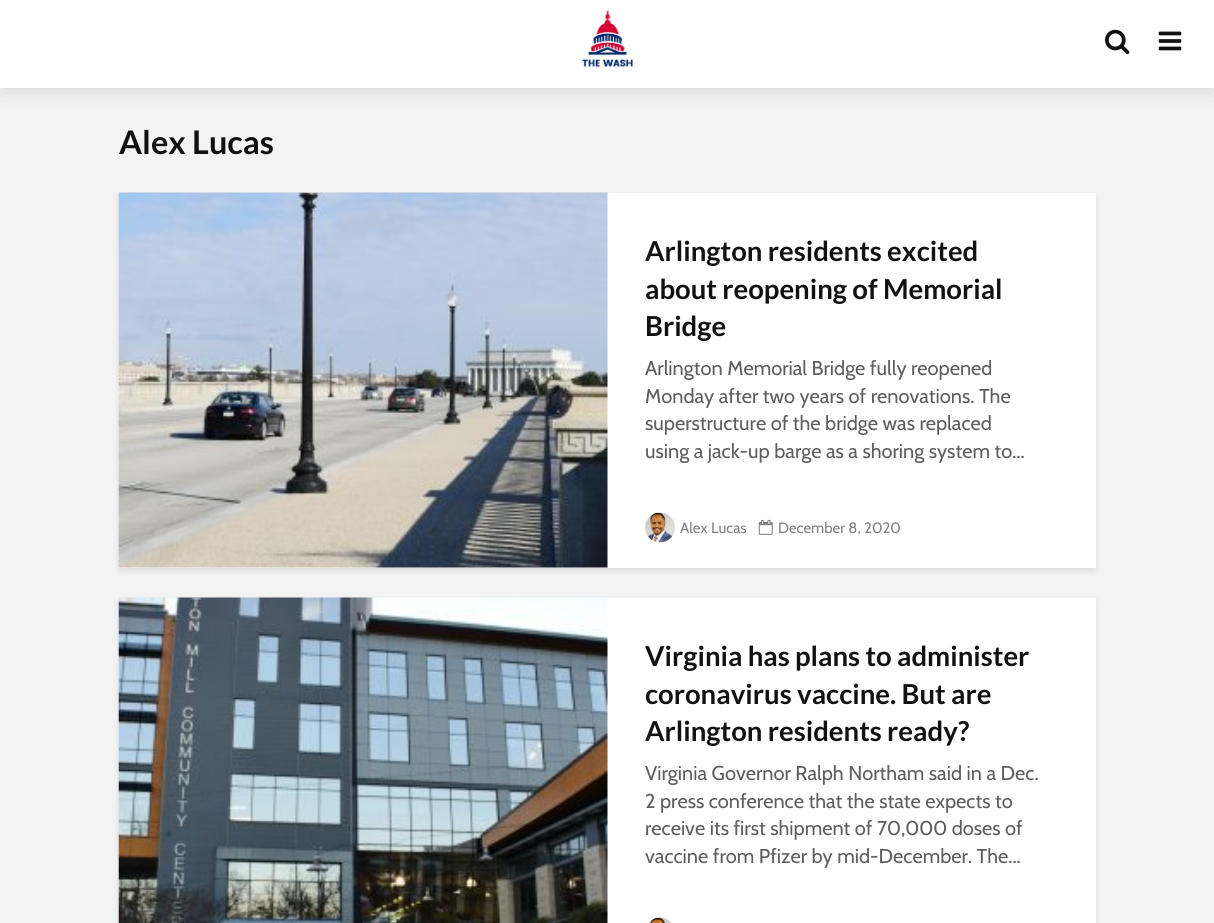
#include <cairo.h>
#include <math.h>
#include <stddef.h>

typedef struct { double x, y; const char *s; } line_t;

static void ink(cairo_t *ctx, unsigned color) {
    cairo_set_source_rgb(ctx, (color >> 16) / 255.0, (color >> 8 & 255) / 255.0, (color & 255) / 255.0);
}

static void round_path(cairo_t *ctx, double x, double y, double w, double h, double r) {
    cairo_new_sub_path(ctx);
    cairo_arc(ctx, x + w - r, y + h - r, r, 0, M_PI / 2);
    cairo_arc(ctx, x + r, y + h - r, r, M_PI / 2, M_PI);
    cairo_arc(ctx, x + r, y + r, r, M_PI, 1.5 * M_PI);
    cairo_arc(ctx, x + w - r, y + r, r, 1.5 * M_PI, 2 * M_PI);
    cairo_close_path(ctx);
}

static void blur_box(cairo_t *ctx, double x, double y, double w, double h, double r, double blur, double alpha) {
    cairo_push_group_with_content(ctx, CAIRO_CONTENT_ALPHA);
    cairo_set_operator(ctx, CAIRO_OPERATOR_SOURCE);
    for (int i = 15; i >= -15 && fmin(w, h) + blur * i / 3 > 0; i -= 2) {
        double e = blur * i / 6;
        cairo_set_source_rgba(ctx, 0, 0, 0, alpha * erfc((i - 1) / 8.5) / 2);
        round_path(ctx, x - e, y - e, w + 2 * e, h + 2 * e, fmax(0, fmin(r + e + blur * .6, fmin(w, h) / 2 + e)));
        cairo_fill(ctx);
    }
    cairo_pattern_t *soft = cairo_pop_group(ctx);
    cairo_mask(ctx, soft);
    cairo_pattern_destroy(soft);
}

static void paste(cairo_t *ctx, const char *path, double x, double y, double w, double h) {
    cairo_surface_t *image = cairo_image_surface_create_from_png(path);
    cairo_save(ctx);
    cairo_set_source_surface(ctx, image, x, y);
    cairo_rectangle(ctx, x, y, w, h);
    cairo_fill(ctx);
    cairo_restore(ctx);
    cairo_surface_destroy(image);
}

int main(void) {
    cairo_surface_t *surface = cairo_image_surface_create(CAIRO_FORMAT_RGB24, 1214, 923);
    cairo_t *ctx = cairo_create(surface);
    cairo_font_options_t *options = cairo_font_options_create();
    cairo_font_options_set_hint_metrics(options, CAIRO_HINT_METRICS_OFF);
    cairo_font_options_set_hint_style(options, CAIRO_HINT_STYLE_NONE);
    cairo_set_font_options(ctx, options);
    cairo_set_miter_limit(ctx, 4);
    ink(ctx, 0xF3F3F3);
    cairo_paint(ctx);
    ink(ctx, 0x000000);
    blur_box(ctx, 0, 0, 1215, 88, 0, 12.5, 0.15);
    ink(ctx, 0xFFFFFF);
    cairo_rectangle(ctx, 0, 0, 1214, 88);
    cairo_fill(ctx);
    paste(ctx, "media/1.png", 581, 10, 52, 58);
    paste(ctx, "media/2.png", 1105, 29, 25, 26);
    paste(ctx, "media/3.png", 1158, 31, 24, 20);
    cairo_select_font_face(ctx, "Lato", CAIRO_FONT_SLANT_NORMAL, CAIRO_FONT_WEIGHT_BOLD);
    cairo_set_font_size(ctx, 32.5);
    ink(ctx, 0x111111);
    cairo_move_to(ctx, 119, 154);
    cairo_show_text(ctx, "Alex Lucas");
    ink(ctx, 0x000101);
    blur_box(ctx, 119, 196, 977, 375, 0, 3, 0.1);
    ink(ctx, 0xFFFFFF);
    cairo_rectangle(ctx, 119, 193, 977, 375);
    cairo_fill(ctx);
    paste(ctx, "media/4.png", 118, 192, 490, 376);
    cairo_set_font_size(ctx, 27.5);
    ink(ctx, 0x111111);
    {
        static const line_t items[] = {
            {645, 261, "Arlington residents excited"},
            {645, 299, "about reopening of Memorial"},
            {645, 336, "Bridge"},
        };
        for (size_t i = 0; i < sizeof items / sizeof *items; i++) {
            cairo_move_to(ctx, items[i].x, items[i].y);
            cairo_show_text(ctx, items[i].s);
        }
    }
    cairo_select_font_face(ctx, "Cabin", CAIRO_FONT_SLANT_NORMAL, CAIRO_FONT_WEIGHT_NORMAL);
    cairo_set_font_size(ctx, 20);
    ink(ctx, 0x5E5E5E);
    {
        static const line_t items[] = {
            {645, 375, "Arlington Memorial Bridge fully reopened"},
            {645, 403, "Monday after two years of renovations. The"},
            {645, 430, "superstructure of the bridge was replaced"},
            {645, 458, "using a jack-up barge as a shoring system to..."},
        };
        for (size_t i = 0; i < sizeof items / sizeof *items; i++) {
            cairo_move_to(ctx, items[i].x, items[i].y);
            cairo_show_text(ctx, items[i].s);
        }
    }
    paste(ctx, "media/5.png", 645, 512, 30, 31);
    cairo_set_font_size(ctx, 15);
    ink(ctx, 0x818181);
    cairo_move_to(ctx, 680, 533);
    cairo_show_text(ctx, "Alex Lucas");
    paste(ctx, "media/6.png", 758, 519, 15, 16);
    cairo_move_to(ctx, 778, 533);
    cairo_show_text(ctx, "December 8, 2020");
    ink(ctx, 0x000101);
    blur_box(ctx, 119, 601, 977, 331, 0, 3, 0.1);
    ink(ctx, 0xFFFFFF);
    cairo_rectangle(ctx, 607, 598, 489, 325);
    cairo_fill(ctx);
    paste(ctx, "media/7.png", 118, 597, 490, 326);
    cairo_select_font_face(ctx, "Lato", CAIRO_FONT_SLANT_NORMAL, CAIRO_FONT_WEIGHT_BOLD);
    cairo_set_font_size(ctx, 27.5);
    ink(ctx, 0x111111);
    {
        static const line_t items[] = {
            {645, 666, "Virginia has plans to administer"},
            {645, 704, "coronavirus vaccine. But are"},
            {645, 741, "Arlington residents ready?"},
        };
        for (size_t i = 0; i < sizeof items / sizeof *items; i++) {
            cairo_move_to(ctx, items[i].x, items[i].y);
            cairo_show_text(ctx, items[i].s);
        }
    }
    cairo_select_font_face(ctx, "Cabin", CAIRO_FONT_SLANT_NORMAL, CAIRO_FONT_WEIGHT_NORMAL);
    cairo_set_font_size(ctx, 20);
    ink(ctx, 0x5E5E5E);
    {
        static const line_t items[] = {
            {645, 780, "Virginia Governor Ralph Northam said in a Dec."},
            {645, 808, "2 press conference that the state expects to"},
            {645, 835, "receive its first shipment of 70,000 doses of"},
            {645, 863, "vaccine from Pfizer by mid-December. The..."},
        };
        for (size_t i = 0; i < sizeof items / sizeof *items; i++) {
            cairo_move_to(ctx, items[i].x, items[i].y);
            cairo_show_text(ctx, items[i].s);
        }
    }
    paste(ctx, "media/8.png", 648, 917, 24, 6);
    cairo_surface_write_to_png(surface, "image.png");
    cairo_font_options_destroy(options);
    cairo_destroy(ctx);
    cairo_surface_destroy(surface);
    return 0;
}
